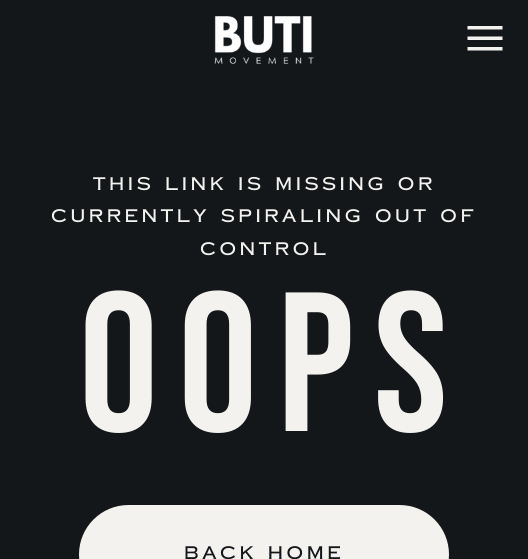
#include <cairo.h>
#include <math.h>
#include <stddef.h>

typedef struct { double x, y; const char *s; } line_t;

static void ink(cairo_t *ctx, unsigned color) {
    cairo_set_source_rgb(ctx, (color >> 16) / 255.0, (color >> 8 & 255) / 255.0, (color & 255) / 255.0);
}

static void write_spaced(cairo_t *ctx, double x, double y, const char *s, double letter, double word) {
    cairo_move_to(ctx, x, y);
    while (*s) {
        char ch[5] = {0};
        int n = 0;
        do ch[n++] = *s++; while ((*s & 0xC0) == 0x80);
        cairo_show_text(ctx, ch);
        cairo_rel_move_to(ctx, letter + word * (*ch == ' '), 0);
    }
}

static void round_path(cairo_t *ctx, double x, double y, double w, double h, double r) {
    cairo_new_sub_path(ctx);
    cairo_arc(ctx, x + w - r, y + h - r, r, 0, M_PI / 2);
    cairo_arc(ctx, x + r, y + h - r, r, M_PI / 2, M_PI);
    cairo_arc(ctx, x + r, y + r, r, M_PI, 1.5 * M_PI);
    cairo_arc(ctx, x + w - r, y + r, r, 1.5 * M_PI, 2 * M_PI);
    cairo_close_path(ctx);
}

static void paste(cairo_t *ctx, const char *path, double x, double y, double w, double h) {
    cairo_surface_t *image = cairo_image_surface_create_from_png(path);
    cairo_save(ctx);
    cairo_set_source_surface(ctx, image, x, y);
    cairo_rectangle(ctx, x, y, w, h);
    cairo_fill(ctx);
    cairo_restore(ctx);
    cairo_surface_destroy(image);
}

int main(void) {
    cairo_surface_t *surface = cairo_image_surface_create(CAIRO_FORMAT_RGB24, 528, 559);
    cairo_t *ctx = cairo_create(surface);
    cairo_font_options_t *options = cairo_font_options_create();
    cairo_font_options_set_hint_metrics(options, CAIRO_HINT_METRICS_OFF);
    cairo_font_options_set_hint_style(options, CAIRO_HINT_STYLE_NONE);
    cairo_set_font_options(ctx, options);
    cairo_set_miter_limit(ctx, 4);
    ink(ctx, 0x13171A);
    cairo_paint(ctx);
    paste(ctx, "media/1.png", 214, 16, 100, 48);
    ink(ctx, 0xF4F2EF);
    cairo_new_path(ctx);
    cairo_move_to(ctx, 467.5, 36.5);
    cairo_line_to(ctx, 502.5, 36.5);
    cairo_line_to(ctx, 502.5, 40);
    cairo_line_to(ctx, 467.5, 40);
    cairo_close_path(ctx);
    cairo_move_to(ctx, 467.5, 26);
    cairo_line_to(ctx, 502.5, 26);
    cairo_line_to(ctx, 502.5, 29.5);
    cairo_line_to(ctx, 467.5, 29.5);
    cairo_close_path(ctx);
    cairo_move_to(ctx, 467.5, 47);
    cairo_line_to(ctx, 502.5, 47);
    cairo_line_to(ctx, 502.5, 50.5);
    cairo_line_to(ctx, 467.5, 50.5);
    cairo_close_path(ctx);
    cairo_fill(ctx);
    cairo_select_font_face(ctx, "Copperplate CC", CAIRO_FONT_SLANT_NORMAL, CAIRO_FONT_WEIGHT_NORMAL);
    cairo_set_font_size(ctx, 18.15);
    {
        static const line_t items[] = {
            {93, 190, "THIS LINK IS MISSING OR"},
            {51, 222, "CURRENTLY SPIRALING OUT OF"},
            {200, 255, "CONTROL"},
        };
        for (size_t i = 0; i < sizeof items / sizeof *items; i++) {
            write_spaced(ctx, items[i].x, items[i].y, items[i].s, 3.6, 0);
        }
    }
    cairo_select_font_face(ctx, "Bebas Neue", CAIRO_FONT_SLANT_NORMAL, CAIRO_FONT_WEIGHT_NORMAL);
    cairo_set_font_size(ctx, 198);
    write_spaced(ctx, 79, 431, "oops", 20, 0);
    round_path(ctx, 79, 505, 370, 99, 49.5);
    cairo_fill(ctx);
    cairo_select_font_face(ctx, "Copperplate CC", CAIRO_FONT_SLANT_NORMAL, CAIRO_FONT_WEIGHT_NORMAL);
    cairo_set_font_size(ctx, 18.15);
    ink(ctx, 0x13171A);
    write_spaced(ctx, 184, 559, "BACK HOME", 3.6, 0);
    cairo_surface_write_to_png(surface, "image.png");
    cairo_font_options_destroy(options);
    cairo_destroy(ctx);
    cairo_surface_destroy(surface);
    return 0;
}
